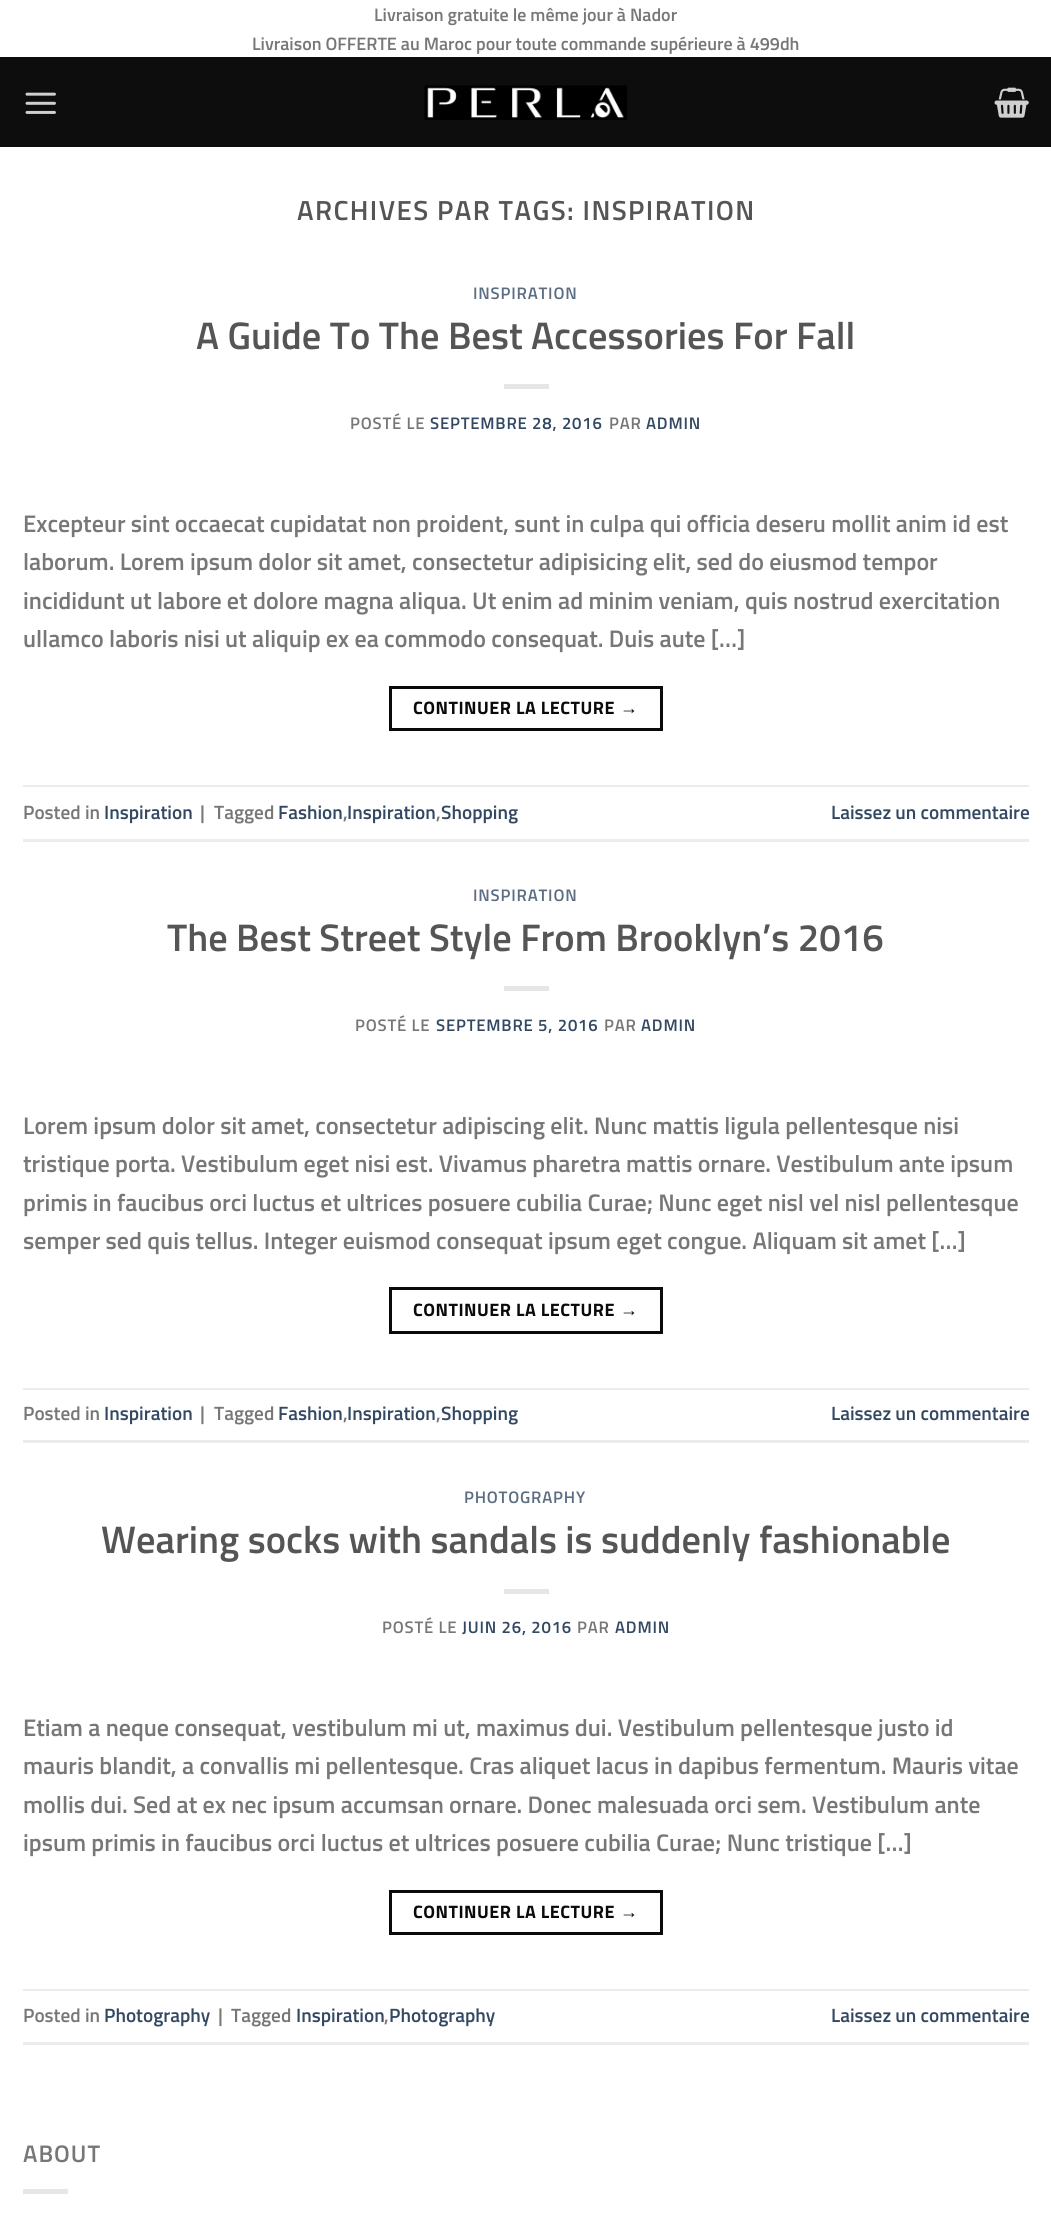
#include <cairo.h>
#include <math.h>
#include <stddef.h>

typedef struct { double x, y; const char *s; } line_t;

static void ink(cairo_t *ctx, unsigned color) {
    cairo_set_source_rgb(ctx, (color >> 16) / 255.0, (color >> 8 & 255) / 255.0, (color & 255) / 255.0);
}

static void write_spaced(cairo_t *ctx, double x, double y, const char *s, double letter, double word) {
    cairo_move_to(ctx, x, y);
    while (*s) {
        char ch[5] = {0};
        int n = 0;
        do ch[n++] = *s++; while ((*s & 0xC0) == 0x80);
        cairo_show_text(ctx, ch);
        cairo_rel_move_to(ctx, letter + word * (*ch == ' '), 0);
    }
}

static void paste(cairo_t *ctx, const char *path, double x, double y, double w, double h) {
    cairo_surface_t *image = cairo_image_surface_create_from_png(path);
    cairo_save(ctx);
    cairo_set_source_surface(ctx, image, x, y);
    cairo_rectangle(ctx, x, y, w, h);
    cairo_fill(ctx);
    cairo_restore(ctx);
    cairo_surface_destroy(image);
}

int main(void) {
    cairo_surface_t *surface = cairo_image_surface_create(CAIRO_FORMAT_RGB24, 1051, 2218);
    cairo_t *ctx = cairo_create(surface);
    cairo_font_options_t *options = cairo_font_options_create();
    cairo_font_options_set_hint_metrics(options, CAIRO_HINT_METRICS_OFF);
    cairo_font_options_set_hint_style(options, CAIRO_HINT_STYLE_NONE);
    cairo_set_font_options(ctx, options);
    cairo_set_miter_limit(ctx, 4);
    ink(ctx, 0xFFFFFF);
    cairo_paint(ctx);
    cairo_select_font_face(ctx, "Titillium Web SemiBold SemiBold", CAIRO_FONT_SLANT_NORMAL, CAIRO_FONT_WEIGHT_NORMAL);
    cairo_set_font_size(ctx, 18);
    ink(ctx, 0x777777);
    cairo_move_to(ctx, 374, 21);
    cairo_show_text(ctx, "Livraison gratuite le même jour à Nador");
    cairo_move_to(ctx, 252, 50);
    cairo_show_text(ctx, "Livraison OFFERTE au Maroc pour toute commande supérieure à 499dh");
    ink(ctx, 0x0D0D0D);
    cairo_rectangle(ctx, 0, 57, 1051, 90);
    cairo_fill(ctx);
    paste(ctx, "media/1.png", 25, 92, 31, 22);
    paste(ctx, "media/2.png", 424, 85, 203, 35);
    paste(ctx, "media/3.png", 994, 87, 35, 31);
    cairo_set_font_size(ctx, 27.6);
    ink(ctx, 0x555555);
    write_spaced(ctx, 297, 220, "ARCHIVES PAR TAGS: INSPIRATION", 1.4, 0);
    cairo_set_font_size(ctx, 16.75);
    ink(ctx, 0x5C6D81);
    write_spaced(ctx, 473, 299, "INSPIRATION", 0.8, 0);
    cairo_set_font_size(ctx, 38.4);
    ink(ctx, 0x555555);
    cairo_move_to(ctx, 196, 349);
    cairo_show_text(ctx, "A Guide To The Best Accessories For Fall");
    ink(ctx, 0xE6E6E6);
    cairo_rectangle(ctx, 504, 384, 45, 5);
    cairo_fill(ctx);
    cairo_set_font_size(ctx, 16.75);
    ink(ctx, 0x777777);
    write_spaced(ctx, 350, 429, "POSTÉ LE", 0.8, 0);
    ink(ctx, 0x334862);
    write_spaced(ctx, 430, 429, "SEPTEMBRE 28, 2016", 0.8, 0);
    ink(ctx, 0x777777);
    write_spaced(ctx, 609, 429, "PAR", 0.8, 0);
    ink(ctx, 0x334862);
    write_spaced(ctx, 646, 429, "ADMIN", 0.8, 0);
    cairo_set_font_size(ctx, 24);
    ink(ctx, 0x777777);
    {
        static const line_t items[] = {
            {23, 532, "Excepteur sint occaecat cupidatat non proident, sunt in culpa qui officia deseru mollit anim id est"},
            {23, 570, "laborum. Lorem ipsum dolor sit amet, consectetur adipisicing elit, sed do eiusmod tempor"},
            {23, 609, "incididunt ut labore et dolore magna aliqua. Ut enim ad minim veniam, quis nostrud exercitation"},
            {23, 647, "ullamco laboris nisi ut aliquip ex ea commodo consequat. Duis aute […]"},
        };
        for (size_t i = 0; i < sizeof items / sizeof *items; i++) {
            cairo_move_to(ctx, items[i].x, items[i].y);
            cairo_show_text(ctx, items[i].s);
        }
    }
    cairo_rectangle(ctx, 390.5, 687.5, 271, 42);
    ink(ctx, 0x0A0A0A);
    cairo_set_line_width(ctx, 3);
    cairo_stroke(ctx);
    cairo_select_font_face(ctx, "Titillium Web", CAIRO_FONT_SLANT_NORMAL, CAIRO_FONT_WEIGHT_BOLD);
    cairo_set_font_size(ctx, 18);
    write_spaced(ctx, 413, 714, "CONTINUER LA LECTURE", 0.5, 0);
    cairo_select_font_face(ctx, "Liberation Sans", CAIRO_FONT_SLANT_NORMAL, CAIRO_FONT_WEIGHT_BOLD);
    write_spaced(ctx, 620, 714, "→", 0.5, 0);
    ink(ctx, 0xECECEC);
    cairo_rectangle(ctx, 23, 785, 1006, 2);
    cairo_fill(ctx);
    cairo_rectangle(ctx, 23, 839, 1006, 3);
    cairo_fill(ctx);
    cairo_select_font_face(ctx, "Titillium Web SemiBold SemiBold", CAIRO_FONT_SLANT_NORMAL, CAIRO_FONT_WEIGHT_NORMAL);
    cairo_set_font_size(ctx, 19.25);
    ink(ctx, 0x777777);
    cairo_move_to(ctx, 23, 819);
    cairo_show_text(ctx, "Posted in");
    ink(ctx, 0x334862);
    cairo_move_to(ctx, 104, 819);
    cairo_show_text(ctx, "Inspiration");
    ink(ctx, 0x777777);
    cairo_move_to(ctx, 200, 819);
    cairo_show_text(ctx, "|");
    cairo_move_to(ctx, 214, 819);
    cairo_show_text(ctx, "Tagged");
    ink(ctx, 0x334862);
    cairo_move_to(ctx, 278, 819);
    cairo_show_text(ctx, "Fashion");
    ink(ctx, 0x777777);
    cairo_move_to(ctx, 343, 819);
    cairo_show_text(ctx, ",");
    ink(ctx, 0x334862);
    cairo_move_to(ctx, 347, 819);
    cairo_show_text(ctx, "Inspiration");
    ink(ctx, 0x777777);
    cairo_move_to(ctx, 436, 819);
    cairo_show_text(ctx, ",");
    ink(ctx, 0x334862);
    cairo_move_to(ctx, 441, 819);
    cairo_show_text(ctx, "Shopping");
    cairo_move_to(ctx, 831, 819);
    cairo_show_text(ctx, "Laissez un commentaire");
    cairo_set_font_size(ctx, 16.75);
    ink(ctx, 0x5C6D81);
    write_spaced(ctx, 473, 901, "INSPIRATION", 0.8, 0);
    cairo_set_font_size(ctx, 38.4);
    ink(ctx, 0x555555);
    cairo_move_to(ctx, 167, 951);
    cairo_show_text(ctx, "The Best Street Style From Brooklyn’s 2016");
    ink(ctx, 0xE6E6E6);
    cairo_rectangle(ctx, 504, 986, 45, 5);
    cairo_fill(ctx);
    cairo_set_font_size(ctx, 16.75);
    ink(ctx, 0x777777);
    write_spaced(ctx, 355, 1031, "POSTÉ LE", 0.8, 0);
    ink(ctx, 0x334862);
    write_spaced(ctx, 436, 1031, "SEPTEMBRE 5, 2016", 0.8, 0);
    ink(ctx, 0x777777);
    write_spaced(ctx, 604, 1031, "PAR", 0.8, 0);
    ink(ctx, 0x334862);
    write_spaced(ctx, 641, 1031, "ADMIN", 0.8, 0);
    cairo_set_font_size(ctx, 24);
    ink(ctx, 0x777777);
    {
        static const line_t items[] = {
            {23, 1134, "Lorem ipsum dolor sit amet, consectetur adipiscing elit. Nunc mattis ligula pellentesque nisi"},
            {23, 1172, "tristique porta. Vestibulum eget nisi est. Vivamus pharetra mattis ornare. Vestibulum ante ipsum"},
            {23, 1211, "primis in faucibus orci luctus et ultrices posuere cubilia Curae; Nunc eget nisl vel nisl pellentesque"},
            {23, 1249, "semper sed quis tellus. Integer euismod consequat ipsum eget congue. Aliquam sit amet […]"},
        };
        for (size_t i = 0; i < sizeof items / sizeof *items; i++) {
            cairo_move_to(ctx, items[i].x, items[i].y);
            cairo_show_text(ctx, items[i].s);
        }
    }
    cairo_rectangle(ctx, 390.5, 1288.5, 271, 44);
    ink(ctx, 0x0A0A0A);
    cairo_stroke(ctx);
    cairo_select_font_face(ctx, "Titillium Web", CAIRO_FONT_SLANT_NORMAL, CAIRO_FONT_WEIGHT_BOLD);
    cairo_set_font_size(ctx, 18);
    write_spaced(ctx, 413, 1316, "CONTINUER LA LECTURE", 0.5, 0);
    cairo_select_font_face(ctx, "Liberation Sans", CAIRO_FONT_SLANT_NORMAL, CAIRO_FONT_WEIGHT_BOLD);
    write_spaced(ctx, 620, 1316, "→", 0.5, 0);
    ink(ctx, 0xECECEC);
    cairo_rectangle(ctx, 23, 1388, 1006, 2);
    cairo_fill(ctx);
    cairo_rectangle(ctx, 23, 1440, 1006, 3);
    cairo_fill(ctx);
    cairo_select_font_face(ctx, "Titillium Web SemiBold SemiBold", CAIRO_FONT_SLANT_NORMAL, CAIRO_FONT_WEIGHT_NORMAL);
    cairo_set_font_size(ctx, 19.25);
    ink(ctx, 0x777777);
    cairo_move_to(ctx, 23, 1420);
    cairo_show_text(ctx, "Posted in");
    ink(ctx, 0x334862);
    cairo_move_to(ctx, 104, 1420);
    cairo_show_text(ctx, "Inspiration");
    ink(ctx, 0x777777);
    cairo_move_to(ctx, 200, 1420);
    cairo_show_text(ctx, "|");
    cairo_move_to(ctx, 214, 1420);
    cairo_show_text(ctx, "Tagged");
    ink(ctx, 0x334862);
    cairo_move_to(ctx, 278, 1420);
    cairo_show_text(ctx, "Fashion");
    ink(ctx, 0x777777);
    cairo_move_to(ctx, 343, 1420);
    cairo_show_text(ctx, ",");
    ink(ctx, 0x334862);
    cairo_move_to(ctx, 347, 1420);
    cairo_show_text(ctx, "Inspiration");
    ink(ctx, 0x777777);
    cairo_move_to(ctx, 436, 1420);
    cairo_show_text(ctx, ",");
    ink(ctx, 0x334862);
    cairo_move_to(ctx, 441, 1420);
    cairo_show_text(ctx, "Shopping");
    cairo_move_to(ctx, 831, 1420);
    cairo_show_text(ctx, "Laissez un commentaire");
    cairo_set_font_size(ctx, 16.75);
    ink(ctx, 0x5C6D81);
    write_spaced(ctx, 464, 1503, "PHOTOGRAPHY", 0.8, 0);
    cairo_set_font_size(ctx, 38.4);
    ink(ctx, 0x555555);
    cairo_move_to(ctx, 101, 1553);
    cairo_show_text(ctx, "Wearing socks with sandals is suddenly fashionable");
    ink(ctx, 0xE6E6E6);
    cairo_rectangle(ctx, 504, 1589, 45, 5);
    cairo_fill(ctx);
    cairo_set_font_size(ctx, 16.75);
    ink(ctx, 0x777777);
    write_spaced(ctx, 382, 1633, "POSTÉ LE", 0.8, 0);
    ink(ctx, 0x334862);
    write_spaced(ctx, 462, 1633, "JUIN 26, 2016", 0.8, 0);
    ink(ctx, 0x777777);
    write_spaced(ctx, 577, 1633, "PAR", 0.8, 0);
    ink(ctx, 0x334862);
    write_spaced(ctx, 615, 1633, "ADMIN", 0.8, 0);
    cairo_set_font_size(ctx, 24);
    ink(ctx, 0x777777);
    {
        static const line_t items[] = {
            {23, 1736, "Etiam a neque consequat, vestibulum mi ut, maximus dui. Vestibulum pellentesque justo id"},
            {23, 1774, "mauris blandit, a convallis mi pellentesque. Cras aliquet lacus in dapibus fermentum. Mauris vitae"},
            {23, 1813, "mollis dui. Sed at ex nec ipsum accumsan ornare. Donec malesuada orci sem. Vestibulum ante"},
            {23, 1851, "ipsum primis in faucibus orci luctus et ultrices posuere cubilia Curae; Nunc tristique […]"},
        };
        for (size_t i = 0; i < sizeof items / sizeof *items; i++) {
            cairo_move_to(ctx, items[i].x, items[i].y);
            cairo_show_text(ctx, items[i].s);
        }
    }
    cairo_rectangle(ctx, 390.5, 1891.5, 271, 42);
    ink(ctx, 0x0A0A0A);
    cairo_stroke(ctx);
    cairo_select_font_face(ctx, "Titillium Web", CAIRO_FONT_SLANT_NORMAL, CAIRO_FONT_WEIGHT_BOLD);
    cairo_set_font_size(ctx, 18);
    write_spaced(ctx, 413, 1918, "CONTINUER LA LECTURE", 0.5, 0);
    cairo_select_font_face(ctx, "Liberation Sans", CAIRO_FONT_SLANT_NORMAL, CAIRO_FONT_WEIGHT_BOLD);
    write_spaced(ctx, 620, 1918, "→", 0.5, 0);
    ink(ctx, 0xECECEC);
    cairo_rectangle(ctx, 23, 1989, 1006, 2);
    cairo_fill(ctx);
    cairo_rectangle(ctx, 23, 2042, 1006, 3);
    cairo_fill(ctx);
    cairo_select_font_face(ctx, "Titillium Web SemiBold SemiBold", CAIRO_FONT_SLANT_NORMAL, CAIRO_FONT_WEIGHT_NORMAL);
    cairo_set_font_size(ctx, 19.25);
    ink(ctx, 0x777777);
    cairo_move_to(ctx, 23, 2022);
    cairo_show_text(ctx, "Posted in");
    ink(ctx, 0x334862);
    cairo_move_to(ctx, 104, 2022);
    cairo_show_text(ctx, "Photography");
    ink(ctx, 0x777777);
    cairo_move_to(ctx, 218, 2022);
    cairo_show_text(ctx, "|");
    cairo_move_to(ctx, 231, 2022);
    cairo_show_text(ctx, "Tagged");
    ink(ctx, 0x334862);
    cairo_move_to(ctx, 296, 2022);
    cairo_show_text(ctx, "Inspiration");
    ink(ctx, 0x777777);
    cairo_move_to(ctx, 384, 2022);
    cairo_show_text(ctx, ",");
    ink(ctx, 0x334862);
    cairo_move_to(ctx, 389, 2022);
    cairo_show_text(ctx, "Photography");
    cairo_move_to(ctx, 831, 2022);
    cairo_show_text(ctx, "Laissez un commentaire");
    cairo_set_font_size(ctx, 24);
    ink(ctx, 0x777777);
    write_spaced(ctx, 23, 2162, "ABOUT", 1, 0);
    ink(ctx, 0xE6E6E6);
    cairo_rectangle(ctx, 23, 2189, 45, 5);
    cairo_fill(ctx);
    cairo_surface_write_to_png(surface, "image.png");
    cairo_font_options_destroy(options);
    cairo_destroy(ctx);
    cairo_surface_destroy(surface);
    return 0;
}
